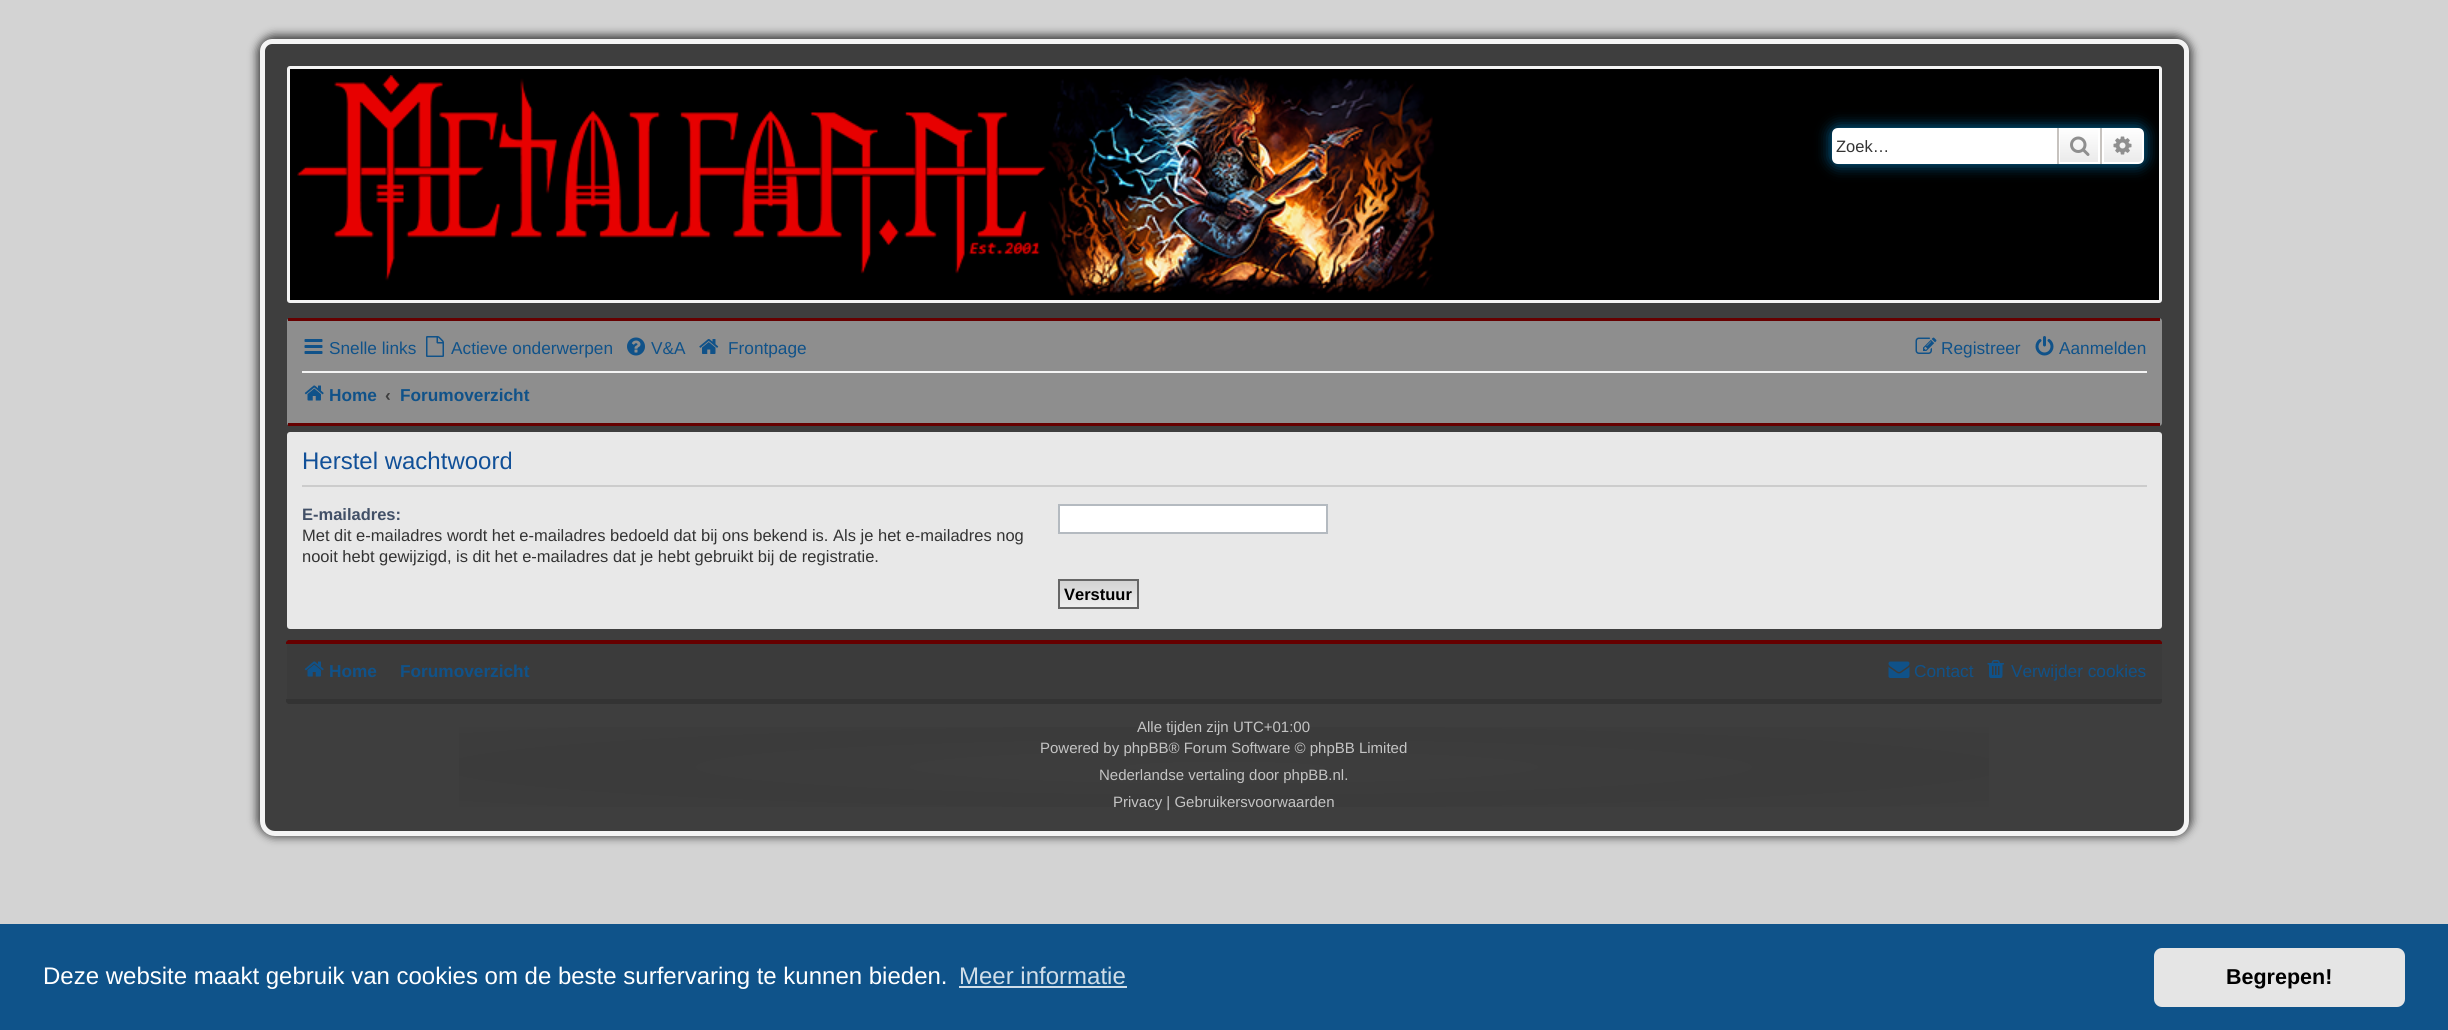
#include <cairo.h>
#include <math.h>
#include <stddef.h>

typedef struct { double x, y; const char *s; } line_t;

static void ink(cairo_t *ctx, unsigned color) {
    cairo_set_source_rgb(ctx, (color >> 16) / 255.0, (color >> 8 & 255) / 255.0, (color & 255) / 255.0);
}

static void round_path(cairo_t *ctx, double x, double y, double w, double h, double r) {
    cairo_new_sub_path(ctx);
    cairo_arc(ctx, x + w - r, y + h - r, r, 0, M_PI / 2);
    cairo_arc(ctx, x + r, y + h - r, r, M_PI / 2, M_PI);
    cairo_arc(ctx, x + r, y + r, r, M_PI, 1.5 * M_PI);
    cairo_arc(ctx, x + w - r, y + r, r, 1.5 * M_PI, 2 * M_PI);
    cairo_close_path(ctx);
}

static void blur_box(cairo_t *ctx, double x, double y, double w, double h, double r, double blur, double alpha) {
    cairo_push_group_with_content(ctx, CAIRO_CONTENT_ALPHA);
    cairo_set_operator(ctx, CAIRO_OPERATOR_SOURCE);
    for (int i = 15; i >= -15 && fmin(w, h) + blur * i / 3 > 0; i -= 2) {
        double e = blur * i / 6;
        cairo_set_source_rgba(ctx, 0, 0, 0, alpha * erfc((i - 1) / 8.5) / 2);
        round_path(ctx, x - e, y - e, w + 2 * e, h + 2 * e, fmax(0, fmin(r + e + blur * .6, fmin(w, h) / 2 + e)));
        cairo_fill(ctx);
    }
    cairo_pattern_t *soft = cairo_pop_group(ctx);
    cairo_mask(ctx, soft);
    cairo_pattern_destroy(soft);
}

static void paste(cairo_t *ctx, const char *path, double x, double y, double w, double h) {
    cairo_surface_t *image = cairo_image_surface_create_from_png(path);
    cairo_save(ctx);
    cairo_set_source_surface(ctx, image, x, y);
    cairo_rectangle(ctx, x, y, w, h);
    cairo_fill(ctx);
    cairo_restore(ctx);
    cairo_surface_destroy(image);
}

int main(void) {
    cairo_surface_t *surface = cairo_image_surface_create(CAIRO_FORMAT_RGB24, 2448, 1030);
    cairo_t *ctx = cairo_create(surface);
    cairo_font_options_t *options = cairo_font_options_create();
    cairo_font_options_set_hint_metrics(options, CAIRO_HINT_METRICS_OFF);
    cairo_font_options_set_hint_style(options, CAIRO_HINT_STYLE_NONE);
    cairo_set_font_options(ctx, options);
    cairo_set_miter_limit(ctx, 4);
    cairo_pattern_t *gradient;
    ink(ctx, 0xD3D3D3);
    cairo_paint(ctx);
    ink(ctx, 0x020202);
    blur_box(ctx, 257, 35, 1935, 802, 18, 4.5, 0.7);
    ink(ctx, 0x3E3E3E);
    cairo_new_path(ctx);
    cairo_move_to(ctx, 272, 41.5);
    cairo_line_to(ctx, 2177, 41.5);
    cairo_curve_to(ctx, 2182, 41.5, 2186.5, 46, 2186.5, 51);
    cairo_line_to(ctx, 2186.5, 821);
    cairo_curve_to(ctx, 2186.5, 828, 2181, 833.5, 2174, 833.5);
    cairo_line_to(ctx, 275, 833.5);
    cairo_curve_to(ctx, 268, 833.5, 262.5, 828, 262.5, 821);
    cairo_line_to(ctx, 262.5, 51);
    cairo_curve_to(ctx, 262.5, 46, 267, 41.5, 272, 41.5);
    cairo_close_path(ctx);
    cairo_fill_preserve(ctx);
    ink(ctx, 0xF4F4F4);
    cairo_set_line_width(ctx, 5);
    cairo_stroke(ctx);
    ink(ctx, 0x000000);
    round_path(ctx, 288.5, 67.5, 1872, 234, 1.5);
    cairo_fill_preserve(ctx);
    ink(ctx, 0xF4F4F4);
    cairo_set_line_width(ctx, 3);
    cairo_stroke(ctx);
    paste(ctx, "media/1.png", 297, 75, 1138, 221);
    ink(ctx, 0x0075B0);
    blur_box(ctx, 1832, 128, 312, 36, 6, 7.5, 1);
    ink(ctx, 0xFFFFFF);
    cairo_new_path(ctx);
    cairo_move_to(ctx, 1838, 128);
    cairo_line_to(ctx, 2057, 128);
    cairo_line_to(ctx, 2057, 164);
    cairo_line_to(ctx, 1838, 164);
    cairo_curve_to(ctx, 1834.5, 164, 1832, 161.5, 1832, 158);
    cairo_line_to(ctx, 1832, 134);
    cairo_curve_to(ctx, 1832, 130.5, 1834.5, 128, 1838, 128);
    cairo_close_path(ctx);
    cairo_fill(ctx);
    cairo_select_font_face(ctx, "Liberation Sans", CAIRO_FONT_SLANT_NORMAL, CAIRO_FONT_WEIGHT_NORMAL);
    cairo_set_font_size(ctx, 16.5);
    ink(ctx, 0x333333);
    cairo_move_to(ctx, 1836, 152);
    cairo_show_text(ctx, "Zoek…");
    gradient = cairo_pattern_create_linear(2079, 128, 2079, 164);
    cairo_pattern_add_color_stop_rgba(gradient, 0, 1, 1, 1, 1);
    cairo_pattern_add_color_stop_rgba(gradient, 1, 0.914, 0.914, 0.914, 1);
    cairo_set_source(ctx, gradient);
    cairo_pattern_destroy(gradient);
    cairo_rectangle(ctx, 2060, 130, 38, 32);
    cairo_fill(ctx);
    cairo_rectangle(ctx, 2059, 129, 40, 34);
    ink(ctx, 0xFFFFFF);
    cairo_set_line_width(ctx, 2);
    cairo_stroke(ctx);
    ink(ctx, 0xC7C3BF);
    cairo_rectangle(ctx, 2100, 128, 2, 36);
    cairo_fill(ctx);
    cairo_rectangle(ctx, 2057, 128, 2, 36);
    cairo_fill(ctx);
    paste(ctx, "media/2.png", 2070, 136, 20, 20);
    gradient = cairo_pattern_create_linear(2123, 128, 2123, 164);
    cairo_pattern_add_color_stop_rgba(gradient, 0, 1, 1, 1, 1);
    cairo_pattern_add_color_stop_rgba(gradient, 1, 0.914, 0.914, 0.914, 1);
    cairo_set_source(ctx, gradient);
    cairo_pattern_destroy(gradient);
    cairo_new_path(ctx);
    cairo_move_to(ctx, 2103, 129);
    cairo_line_to(ctx, 2138, 129);
    cairo_curve_to(ctx, 2141, 129, 2143, 131, 2143, 134);
    cairo_line_to(ctx, 2143, 158);
    cairo_curve_to(ctx, 2143, 161, 2141, 163, 2138, 163);
    cairo_line_to(ctx, 2103, 163);
    cairo_close_path(ctx);
    cairo_fill_preserve(ctx);
    ink(ctx, 0xFFFFFF);
    cairo_stroke(ctx);
    paste(ctx, "media/3.png", 2113, 136, 19, 19);
    ink(ctx, 0x8E8E8E);
    round_path(ctx, 287, 318, 1875, 108, 3);
    cairo_fill(ctx);
    ink(ctx, 0x660000);
    cairo_rectangle(ctx, 288, 318, 1872, 3);
    cairo_fill(ctx);
    cairo_rectangle(ctx, 288, 423, 1872, 3);
    cairo_fill(ctx);
    paste(ctx, "media/4.png", 304, 339, 19, 15);
    cairo_set_font_size(ctx, 17.25);
    ink(ctx, 0x105289);
    cairo_move_to(ctx, 329, 354);
    cairo_show_text(ctx, "Snelle links");
    paste(ctx, "media/5.png", 426, 336, 18, 21);
    cairo_move_to(ctx, 451, 354);
    cairo_show_text(ctx, "Actieve onderwerpen");
    paste(ctx, "media/6.png", 627, 337, 18, 19);
    cairo_move_to(ctx, 651, 354);
    cairo_show_text(ctx, "V&A");
    paste(ctx, "media/7.png", 699, 339, 20, 15);
    cairo_move_to(ctx, 728, 354);
    cairo_show_text(ctx, "Frontpage");
    paste(ctx, "media/8.png", 1915, 337, 22, 17);
    cairo_move_to(ctx, 1941, 354);
    cairo_show_text(ctx, "Registreer");
    paste(ctx, "media/9.png", 2035, 336, 19, 20);
    cairo_move_to(ctx, 2059, 354);
    cairo_show_text(ctx, "Aanmelden");
    ink(ctx, 0xF4F4F4);
    cairo_rectangle(ctx, 302, 371, 1845, 2);
    cairo_fill(ctx);
    paste(ctx, "media/10.png", 304, 385, 20, 16);
    cairo_select_font_face(ctx, "Liberation Sans", CAIRO_FONT_SLANT_NORMAL, CAIRO_FONT_WEIGHT_BOLD);
    ink(ctx, 0x105289);
    cairo_move_to(ctx, 329, 401);
    cairo_show_text(ctx, "Home");
    ink(ctx, 0x3E3E3E);
    cairo_move_to(ctx, 385, 401);
    cairo_show_text(ctx, "‹");
    ink(ctx, 0x105289);
    cairo_move_to(ctx, 400, 401);
    cairo_show_text(ctx, "Forumoverzicht");
    ink(ctx, 0xE8E8E8);
    round_path(ctx, 287, 432, 1875, 197, 3);
    cairo_fill(ctx);
    ink(ctx, 0xCCCCCC);
    cairo_rectangle(ctx, 302, 485, 1845, 2);
    cairo_fill(ctx);
    cairo_select_font_face(ctx, "Liberation Sans", CAIRO_FONT_SLANT_NORMAL, CAIRO_FONT_WEIGHT_NORMAL);
    cairo_set_font_size(ctx, 24);
    ink(ctx, 0x115098);
    cairo_move_to(ctx, 302, 469);
    cairo_show_text(ctx, "Herstel wachtwoord");
    cairo_select_font_face(ctx, "Liberation Sans", CAIRO_FONT_SLANT_NORMAL, CAIRO_FONT_WEIGHT_BOLD);
    cairo_set_font_size(ctx, 16.5);
    ink(ctx, 0x425067);
    cairo_move_to(ctx, 302, 520);
    cairo_show_text(ctx, "E-mailadres:");
    cairo_select_font_face(ctx, "Liberation Sans", CAIRO_FONT_SLANT_NORMAL, CAIRO_FONT_WEIGHT_NORMAL);
    ink(ctx, 0x333333);
    cairo_move_to(ctx, 302, 541);
    cairo_show_text(ctx, "Met dit e-mailadres wordt het e-mailadres bedoeld dat bij ons bekend is. Als je het e-mailadres nog");
    cairo_move_to(ctx, 302, 562);
    cairo_show_text(ctx, "nooit hebt gewijzigd, is dit het e-mailadres dat je hebt gebruikt bij de registratie.");
    ink(ctx, 0xFFFFFF);
    cairo_rectangle(ctx, 1059, 505, 268, 28);
    cairo_fill_preserve(ctx);
    ink(ctx, 0xB4BAC0);
    cairo_stroke(ctx);
    gradient = cairo_pattern_create_linear(1098, 581, 1098, 608);
    cairo_pattern_add_color_stop_rgba(gradient, 0, 0.824, 0.824, 0.824, 1);
    cairo_pattern_add_color_stop_rgba(gradient, 1, 0.937, 0.937, 0.937, 1);
    cairo_set_source(ctx, gradient);
    cairo_pattern_destroy(gradient);
    cairo_rectangle(ctx, 1060, 581, 77, 26);
    cairo_fill(ctx);
    cairo_rectangle(ctx, 1059, 580, 79, 28);
    ink(ctx, 0x666666);
    cairo_stroke(ctx);
    cairo_select_font_face(ctx, "Liberation Sans", CAIRO_FONT_SLANT_NORMAL, CAIRO_FONT_WEIGHT_BOLD);
    ink(ctx, 0x000000);
    cairo_move_to(ctx, 1064, 600);
    cairo_show_text(ctx, "Verstuur");
    ink(ctx, 0x3B3B3B);
    round_path(ctx, 287, 641, 1875, 63, 3);
    cairo_fill(ctx);
    ink(ctx, 0x660000);
    cairo_new_path(ctx);
    cairo_move_to(ctx, 286, 642);
    cairo_line_to(ctx, 288, 640);
    cairo_line_to(ctx, 2160, 640);
    cairo_line_to(ctx, 2162, 642);
    cairo_line_to(ctx, 2162, 644);
    cairo_line_to(ctx, 286, 644);
    cairo_close_path(ctx);
    cairo_fill(ctx);
    ink(ctx, 0x333333);
    cairo_new_path(ctx);
    cairo_move_to(ctx, 2162, 699);
    cairo_line_to(ctx, 2162, 702);
    cairo_line_to(ctx, 2160, 704);
    cairo_line_to(ctx, 288, 704);
    cairo_line_to(ctx, 286, 702);
    cairo_line_to(ctx, 286, 699);
    cairo_close_path(ctx);
    cairo_fill(ctx);
    paste(ctx, "media/11.png", 304, 661, 20, 16);
    cairo_set_font_size(ctx, 17.25);
    ink(ctx, 0x105289);
    cairo_move_to(ctx, 329, 677);
    cairo_show_text(ctx, "Home");
    cairo_move_to(ctx, 400, 677);
    cairo_show_text(ctx, "Forumoverzicht");
    paste(ctx, "media/12.png", 1888, 661, 22, 17);
    cairo_select_font_face(ctx, "Liberation Sans", CAIRO_FONT_SLANT_NORMAL, CAIRO_FONT_WEIGHT_NORMAL);
    cairo_move_to(ctx, 1914, 677);
    cairo_show_text(ctx, "Contact");
    paste(ctx, "media/13.png", 1987, 660, 17, 18);
    cairo_move_to(ctx, 2011, 677);
    cairo_show_text(ctx, "Verwijder cookies");
    gradient = cairo_pattern_create_radial(0, 0, 0, 0, 0, 1);
    cairo_pattern_set_matrix(gradient, &(cairo_matrix_t){1.0 / 1305, 0, 0, 1.0 / 69, -1.0 * 1224 / 1305, -1.0 * 767 / 69});
    cairo_pattern_add_color_stop_rgba(gradient, 0, 0.243, 0.243, 0.243, 1);
    cairo_pattern_add_color_stop_rgba(gradient, 0.5, 0.231, 0.231, 0.231, 1);
    cairo_pattern_add_color_stop_rgba(gradient, 1, 0.243, 0.243, 0.243, 1);
    cairo_set_source(ctx, gradient);
    cairo_pattern_destroy(gradient);
    cairo_rectangle(ctx, 459, 727, 1530, 80);
    cairo_fill(ctx);
    cairo_set_font_size(ctx, 15);
    ink(ctx, 0xC4C4C4);
    {
        static const line_t items[] = {
            {1137, 732, "Alle tijden zijn UTC+01:00"},
            {1040, 753, "Powered by phpBB® Forum Software © phpBB Limited"},
            {1099, 780, "Nederlandse vertaling door phpBB.nl."},
            {1113, 807, "Privacy | Gebruikersvoorwaarden"},
        };
        for (size_t i = 0; i < sizeof items / sizeof *items; i++) {
            cairo_move_to(ctx, items[i].x, items[i].y);
            cairo_show_text(ctx, items[i].s);
        }
    }
    ink(ctx, 0x0F538A);
    cairo_rectangle(ctx, 0, 924, 2448, 106);
    cairo_fill(ctx);
    cairo_set_font_size(ctx, 24);
    ink(ctx, 0xFFFFFF);
    cairo_move_to(ctx, 43, 984);
    cairo_show_text(ctx, "Deze website maakt gebruik van cookies om de beste surfervaring te kunnen bieden.");
    ink(ctx, 0xCFDDE8);
    cairo_move_to(ctx, 959, 984);
    cairo_show_text(ctx, "Meer informatie");
    cairo_rectangle(ctx, 959, 986, 168, 2);
    cairo_fill(ctx);
    ink(ctx, 0xE5E5E5);
    round_path(ctx, 2154, 948, 251, 59, 8);
    cairo_fill(ctx);
    cairo_select_font_face(ctx, "Liberation Sans", CAIRO_FONT_SLANT_NORMAL, CAIRO_FONT_WEIGHT_BOLD);
    cairo_set_font_size(ctx, 21.5);
    ink(ctx, 0x000000);
    cairo_move_to(ctx, 2226, 984);
    cairo_show_text(ctx, "Begrepen!");
    cairo_surface_write_to_png(surface, "image.png");
    cairo_font_options_destroy(options);
    cairo_destroy(ctx);
    cairo_surface_destroy(surface);
    return 0;
}
